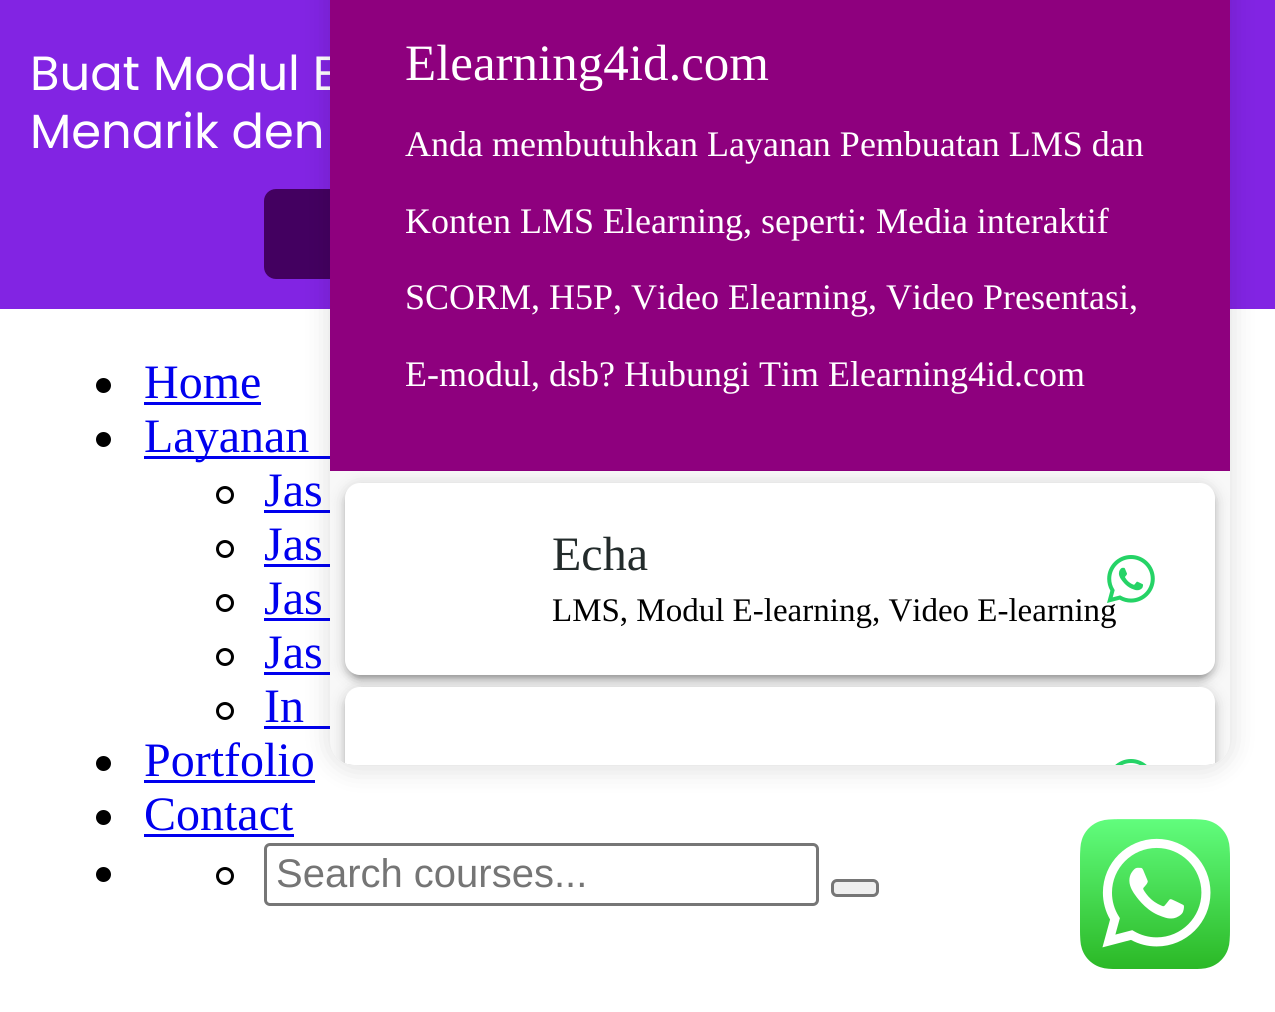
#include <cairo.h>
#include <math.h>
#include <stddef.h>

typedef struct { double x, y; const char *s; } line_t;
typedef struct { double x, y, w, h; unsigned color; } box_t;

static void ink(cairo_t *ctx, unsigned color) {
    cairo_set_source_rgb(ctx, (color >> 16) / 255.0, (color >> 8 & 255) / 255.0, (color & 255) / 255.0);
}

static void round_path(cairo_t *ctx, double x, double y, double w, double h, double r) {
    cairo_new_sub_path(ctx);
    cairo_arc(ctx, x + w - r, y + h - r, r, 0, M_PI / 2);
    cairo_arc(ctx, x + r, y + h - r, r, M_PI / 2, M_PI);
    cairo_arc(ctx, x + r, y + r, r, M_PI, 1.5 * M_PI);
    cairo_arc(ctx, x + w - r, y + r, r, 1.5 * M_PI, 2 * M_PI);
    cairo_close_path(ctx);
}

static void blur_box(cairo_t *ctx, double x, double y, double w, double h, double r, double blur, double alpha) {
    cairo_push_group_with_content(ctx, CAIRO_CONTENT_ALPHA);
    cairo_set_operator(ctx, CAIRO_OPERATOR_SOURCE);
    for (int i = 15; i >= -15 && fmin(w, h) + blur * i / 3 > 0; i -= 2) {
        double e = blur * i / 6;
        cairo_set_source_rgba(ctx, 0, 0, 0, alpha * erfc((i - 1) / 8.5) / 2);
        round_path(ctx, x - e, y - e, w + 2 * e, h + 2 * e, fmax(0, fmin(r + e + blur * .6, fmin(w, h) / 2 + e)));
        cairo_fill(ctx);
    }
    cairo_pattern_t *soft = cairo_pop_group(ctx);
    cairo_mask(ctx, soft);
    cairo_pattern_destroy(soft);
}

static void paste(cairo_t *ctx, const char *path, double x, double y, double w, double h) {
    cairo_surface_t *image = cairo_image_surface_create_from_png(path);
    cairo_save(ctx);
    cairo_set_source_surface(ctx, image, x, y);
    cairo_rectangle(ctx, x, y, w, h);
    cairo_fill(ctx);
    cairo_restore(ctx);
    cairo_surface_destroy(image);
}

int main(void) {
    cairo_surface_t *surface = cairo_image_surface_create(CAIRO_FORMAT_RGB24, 1275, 1012);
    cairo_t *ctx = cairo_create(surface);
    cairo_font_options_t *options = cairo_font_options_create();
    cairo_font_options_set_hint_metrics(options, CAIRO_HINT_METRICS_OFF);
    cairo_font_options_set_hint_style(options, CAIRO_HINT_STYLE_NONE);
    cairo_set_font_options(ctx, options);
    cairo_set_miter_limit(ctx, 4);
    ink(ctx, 0xFFFFFF);
    cairo_paint(ctx);
    ink(ctx, 0x8224E3);
    cairo_rectangle(ctx, 0, 0, 1275, 309);
    cairo_fill(ctx);
    cairo_select_font_face(ctx, "Poppins", CAIRO_FONT_SLANT_NORMAL, CAIRO_FONT_WEIGHT_NORMAL);
    cairo_set_font_size(ctx, 48);
    ink(ctx, 0xFFFFFF);
    cairo_move_to(ctx, 30, 90);
    cairo_show_text(ctx, "Buat Modul E");
    cairo_move_to(ctx, 30, 148);
    cairo_show_text(ctx, "Menarik den");
    ink(ctx, 0x430060);
    round_path(ctx, 264, 189, 732, 90, 12);
    cairo_fill(ctx);
    {
        static const box_t items[] = {
            {144, 456, 186, 3, 0x0000EE},
            {264, 510, 66, 3, 0x0000EE},
            {264, 564, 66, 3, 0x0000EE},
            {264, 618, 66, 3, 0x0000EE},
            {264, 672, 66, 3, 0x0000EE},
            {264, 726, 66, 3, 0x0000EE},
            {144, 780, 171, 3, 0x0000EE},
        };
        for (size_t i = 0; i < sizeof items / sizeof *items; i++) {
            ink(ctx, items[i].color);
            cairo_rectangle(ctx, items[i].x, items[i].y, items[i].w, items[i].h);
            cairo_fill(ctx);
        }
    }
    ink(ctx, 0x000000);
    blur_box(ctx, 330, -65, 900, 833, 24, 13.5, 0.14);
    ink(ctx, 0x8E007E);
    cairo_rectangle(ctx, 330, 0, 900, 471);
    cairo_fill(ctx);
    cairo_select_font_face(ctx, "Liberation Serif", CAIRO_FONT_SLANT_NORMAL, CAIRO_FONT_WEIGHT_NORMAL);
    cairo_set_font_size(ctx, 51);
    ink(ctx, 0xFFFFFF);
    cairo_move_to(ctx, 405, 80);
    cairo_show_text(ctx, "Elearning4id.com");
    cairo_set_font_size(ctx, 36);
    {
        static const line_t items[] = {
            {405, 156, "Anda membutuhkan Layanan Pembuatan LMS dan"},
            {405, 233, "Konten LMS Elearning, seperti: Media interaktif"},
            {405, 309, "SCORM, H5P, Video Elearning, Video Presentasi,"},
            {405, 386, "E-modul, dsb? Hubungi Tim Elearning4id.com"},
        };
        for (size_t i = 0; i < sizeof items / sizeof *items; i++) {
            cairo_move_to(ctx, items[i].x, items[i].y);
            cairo_show_text(ctx, items[i].s);
        }
    }
    ink(ctx, 0xF8F8F8);
    cairo_new_path(ctx);
    cairo_move_to(ctx, 330, 471);
    cairo_line_to(ctx, 1230, 471);
    cairo_line_to(ctx, 1230, 741);
    cairo_curve_to(ctx, 1230, 754.5, 1219.5, 765, 1206, 765);
    cairo_line_to(ctx, 354, 765);
    cairo_curve_to(ctx, 340.5, 765, 330, 754.5, 330, 741);
    cairo_close_path(ctx);
    cairo_fill(ctx);
    ink(ctx, 0x000000);
    blur_box(ctx, 345, 486, 870, 192, 15, 7.5, 0.2);
    blur_box(ctx, 351, 498, 858, 180, 9, 1.5, 0.12);
    blur_box(ctx, 345, 489, 870, 192, 15, 3, 0.14);
    ink(ctx, 0xFFFFFF);
    round_path(ctx, 345, 483, 870, 192, 15);
    cairo_fill(ctx);
    cairo_set_font_size(ctx, 48);
    ink(ctx, 0x232B2B);
    cairo_move_to(ctx, 552, 570);
    cairo_show_text(ctx, "Echa");
    cairo_set_font_size(ctx, 33);
    ink(ctx, 0x000000);
    cairo_move_to(ctx, 552, 621);
    cairo_show_text(ctx, "LMS, Modul E-learning, Video E-learning");
    paste(ctx, "media/1.png", 1107, 555, 48, 48);
    paste(ctx, "media/3.png", 1080, 819, 150, 150);
    round_path(ctx, 265.5, 844.5, 552, 60, 4.5);
    ink(ctx, 0x767676);
    cairo_set_line_width(ctx, 3);
    cairo_stroke(ctx);
    ink(ctx, 0xEFEFEF);
    round_path(ctx, 832.5, 880.5, 45, 15, 4.5);
    cairo_fill_preserve(ctx);
    ink(ctx, 0x767676);
    cairo_stroke(ctx);
    cairo_save(ctx);
    round_path(ctx, 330, -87, 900, 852, 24);
    cairo_clip(ctx);
    ink(ctx, 0x000000);
    blur_box(ctx, 345, 690, 870, 192, 15, 7.5, 0.2);
    blur_box(ctx, 345, 693, 870, 192, 15, 3, 0.14);
    cairo_restore(ctx);
    cairo_save(ctx);
    round_path(ctx, 330, -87, 900, 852, 24);
    cairo_clip(ctx);
    ink(ctx, 0xFFFFFF);
    cairo_new_path(ctx);
    cairo_move_to(ctx, 360, 687);
    cairo_line_to(ctx, 1200, 687);
    cairo_curve_to(ctx, 1208.5, 687, 1215, 693.5, 1215, 702);
    cairo_line_to(ctx, 1215, 765);
    cairo_line_to(ctx, 345, 765);
    cairo_line_to(ctx, 345, 702);
    cairo_curve_to(ctx, 345, 693.5, 351.5, 687, 360, 687);
    cairo_close_path(ctx);
    cairo_fill(ctx);
    cairo_restore(ctx);
    paste(ctx, "media/2.png", 1115, 759, 32, 6);
    ink(ctx, 0x000000);
    cairo_arc(ctx, 103.5, 385.5, 7.5, 0, 2 * M_PI);
    cairo_fill(ctx);
    cairo_set_font_size(ctx, 48);
    ink(ctx, 0x0000EE);
    cairo_move_to(ctx, 144, 398);
    cairo_show_text(ctx, "Home");
    cairo_rectangle(ctx, 144, 402, 117, 3);
    cairo_fill(ctx);
    ink(ctx, 0x000000);
    cairo_arc(ctx, 103.5, 439.5, 7.5, 0, 2 * M_PI);
    cairo_fill(ctx);
    ink(ctx, 0x0000EE);
    cairo_move_to(ctx, 144, 452);
    cairo_show_text(ctx, "Layanan");
    cairo_new_path(ctx);
    cairo_arc(ctx, 225, 495, 7.5, 0, 2 * M_PI);
    ink(ctx, 0x000000);
    cairo_stroke(ctx);
    ink(ctx, 0x0000EE);
    cairo_move_to(ctx, 264, 506);
    cairo_show_text(ctx, "Jas");
    cairo_new_path(ctx);
    cairo_arc(ctx, 225, 549, 7.5, 0, 2 * M_PI);
    ink(ctx, 0x000000);
    cairo_stroke(ctx);
    ink(ctx, 0x0000EE);
    cairo_move_to(ctx, 264, 560);
    cairo_show_text(ctx, "Jas");
    cairo_new_path(ctx);
    cairo_arc(ctx, 225, 603, 7.5, 0, 2 * M_PI);
    ink(ctx, 0x000000);
    cairo_stroke(ctx);
    ink(ctx, 0x0000EE);
    cairo_move_to(ctx, 264, 614);
    cairo_show_text(ctx, "Jas");
    cairo_new_path(ctx);
    cairo_arc(ctx, 225, 657, 7.5, 0, 2 * M_PI);
    ink(ctx, 0x000000);
    cairo_stroke(ctx);
    ink(ctx, 0x0000EE);
    cairo_move_to(ctx, 264, 668);
    cairo_show_text(ctx, "Jas");
    cairo_new_path(ctx);
    cairo_arc(ctx, 225, 711, 7.5, 0, 2 * M_PI);
    ink(ctx, 0x000000);
    cairo_stroke(ctx);
    ink(ctx, 0x0000EE);
    cairo_move_to(ctx, 264, 722);
    cairo_show_text(ctx, "In");
    ink(ctx, 0x000000);
    cairo_new_path(ctx);
    cairo_arc(ctx, 103.5, 763.5, 7.5, 0, 2 * M_PI);
    cairo_fill(ctx);
    ink(ctx, 0x0000EE);
    cairo_move_to(ctx, 144, 776);
    cairo_show_text(ctx, "Portfolio");
    ink(ctx, 0x000000);
    cairo_new_path(ctx);
    cairo_arc(ctx, 103.5, 817.5, 7.5, 0, 2 * M_PI);
    cairo_fill(ctx);
    ink(ctx, 0x0000EE);
    cairo_move_to(ctx, 144, 830);
    cairo_show_text(ctx, "Contact");
    cairo_rectangle(ctx, 144, 834, 150, 3);
    cairo_fill(ctx);
    ink(ctx, 0x000000);
    cairo_arc(ctx, 103.5, 874.5, 7.5, 0, 2 * M_PI);
    cairo_fill(ctx);
    cairo_arc(ctx, 225, 876, 7.5, 0, 2 * M_PI);
    cairo_stroke(ctx);
    cairo_select_font_face(ctx, "Liberation Sans", CAIRO_FONT_SLANT_NORMAL, CAIRO_FONT_WEIGHT_NORMAL);
    cairo_set_font_size(ctx, 40);
    ink(ctx, 0x757575);
    cairo_move_to(ctx, 276, 887);
    cairo_show_text(ctx, "Search courses...");
    cairo_surface_write_to_png(surface, "image.png");
    cairo_font_options_destroy(options);
    cairo_destroy(ctx);
    cairo_surface_destroy(surface);
    return 0;
}
